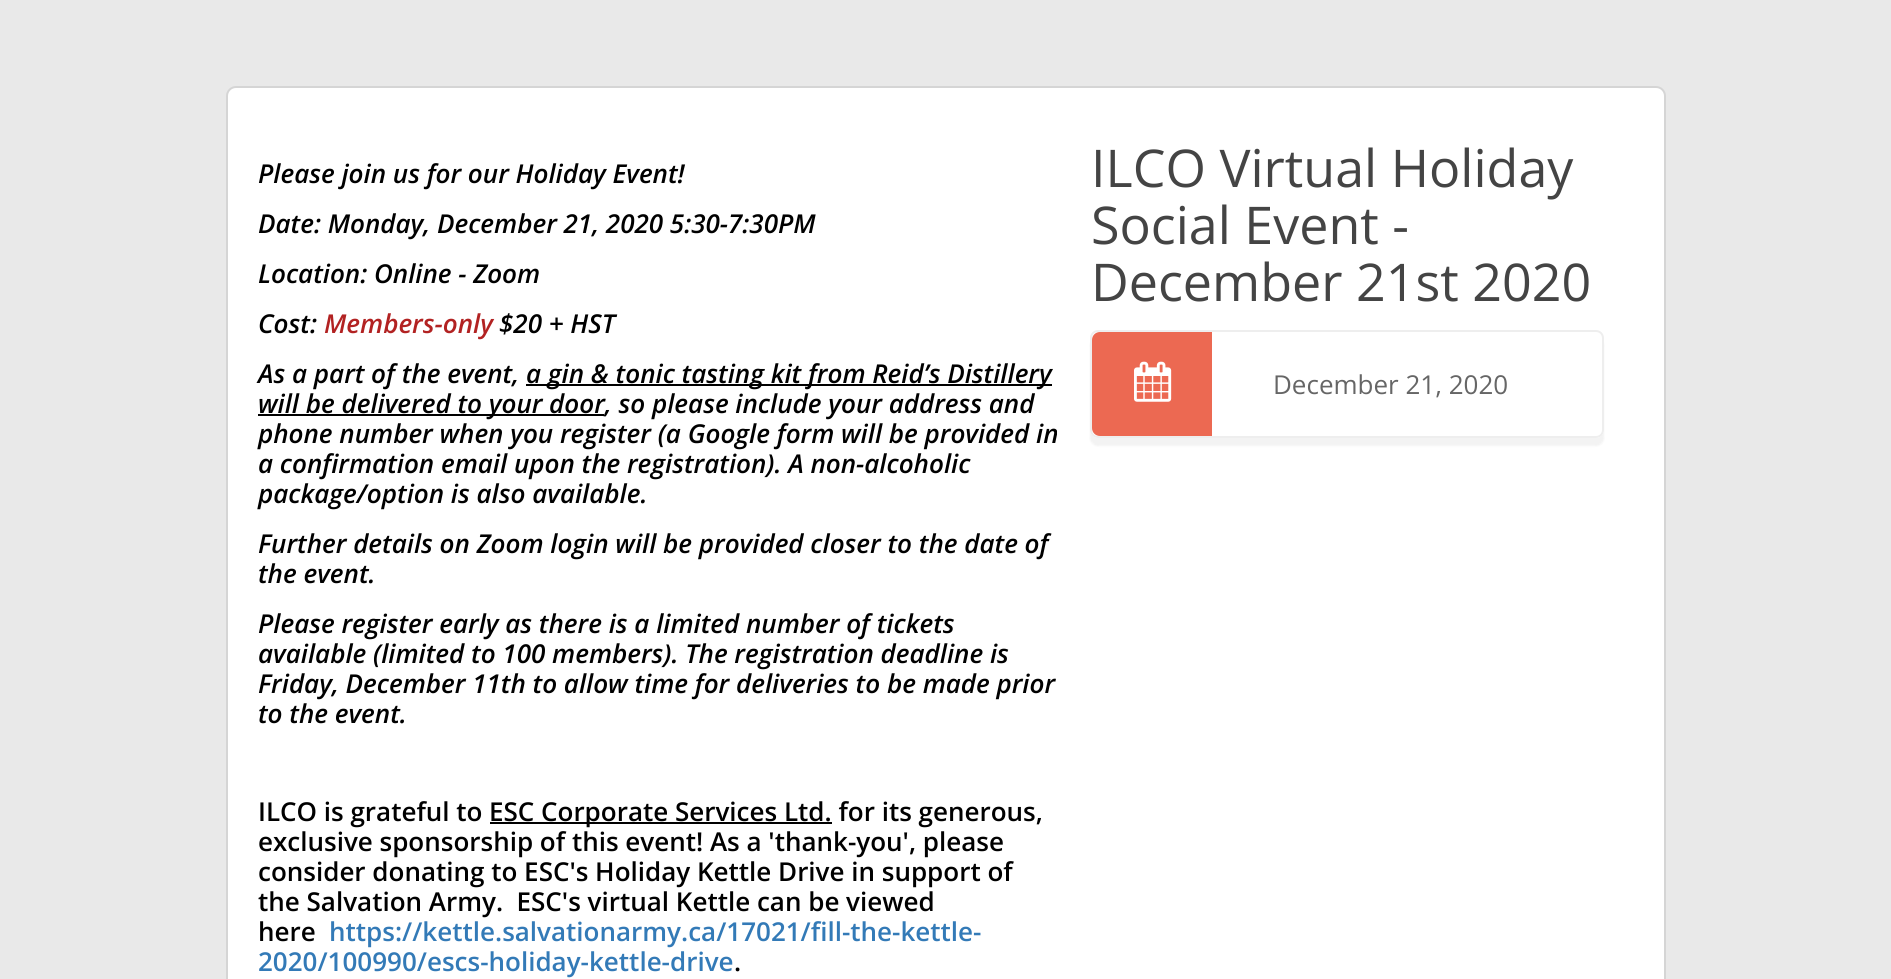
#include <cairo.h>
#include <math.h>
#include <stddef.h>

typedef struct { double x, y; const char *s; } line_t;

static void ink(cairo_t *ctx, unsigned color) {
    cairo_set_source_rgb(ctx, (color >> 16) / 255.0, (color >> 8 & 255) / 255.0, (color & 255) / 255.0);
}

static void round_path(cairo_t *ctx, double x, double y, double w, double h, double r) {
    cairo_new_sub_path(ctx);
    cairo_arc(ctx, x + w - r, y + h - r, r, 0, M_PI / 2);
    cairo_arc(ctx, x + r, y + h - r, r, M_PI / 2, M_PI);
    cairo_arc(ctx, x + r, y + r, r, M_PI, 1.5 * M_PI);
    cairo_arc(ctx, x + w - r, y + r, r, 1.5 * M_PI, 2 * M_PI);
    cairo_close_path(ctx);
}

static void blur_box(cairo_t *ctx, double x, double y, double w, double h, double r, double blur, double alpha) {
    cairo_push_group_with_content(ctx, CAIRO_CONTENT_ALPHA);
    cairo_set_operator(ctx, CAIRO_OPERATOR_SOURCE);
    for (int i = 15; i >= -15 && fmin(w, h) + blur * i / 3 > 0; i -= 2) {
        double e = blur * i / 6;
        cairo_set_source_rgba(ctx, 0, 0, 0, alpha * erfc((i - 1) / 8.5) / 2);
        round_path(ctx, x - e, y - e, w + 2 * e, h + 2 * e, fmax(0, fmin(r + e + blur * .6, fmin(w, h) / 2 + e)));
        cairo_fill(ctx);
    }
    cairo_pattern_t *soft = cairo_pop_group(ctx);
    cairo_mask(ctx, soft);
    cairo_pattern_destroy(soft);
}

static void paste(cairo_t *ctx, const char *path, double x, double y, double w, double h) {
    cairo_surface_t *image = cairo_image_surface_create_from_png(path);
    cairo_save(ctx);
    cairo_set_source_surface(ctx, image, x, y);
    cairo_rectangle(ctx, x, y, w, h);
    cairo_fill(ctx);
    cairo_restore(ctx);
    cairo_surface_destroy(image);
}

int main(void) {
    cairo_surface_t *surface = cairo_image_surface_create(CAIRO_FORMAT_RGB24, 1891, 979);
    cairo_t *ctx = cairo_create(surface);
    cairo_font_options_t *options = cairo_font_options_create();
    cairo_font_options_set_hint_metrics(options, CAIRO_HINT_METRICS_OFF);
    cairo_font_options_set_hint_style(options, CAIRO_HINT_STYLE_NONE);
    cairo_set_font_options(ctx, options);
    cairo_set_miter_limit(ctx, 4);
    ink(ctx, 0xE9E9E9);
    cairo_paint(ctx);
    ink(ctx, 0xFFFFFF);
    round_path(ctx, 227, 87, 1438, 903, 9);
    cairo_fill_preserve(ctx);
    ink(ctx, 0xD5D5D5);
    cairo_stroke(ctx);
    cairo_select_font_face(ctx, "Open Sans SemiBold", CAIRO_FONT_SLANT_ITALIC, CAIRO_FONT_WEIGHT_NORMAL);
    cairo_set_font_size(ctx, 26);
    ink(ctx, 0x000000);
    {
        static const line_t items[] = {
            {258, 183, "Please join us for our Holiday Event!"},
            {258, 233, "Date: Monday, December 21, 2020 5:30-7:30PM"},
            {258, 283, "Location: Online - Zoom"},
            {258, 333, "Cost:"},
        };
        for (size_t i = 0; i < sizeof items / sizeof *items; i++) {
            cairo_move_to(ctx, items[i].x, items[i].y);
            cairo_show_text(ctx, items[i].s);
        }
    }
    ink(ctx, 0xB22222);
    cairo_move_to(ctx, 324, 333);
    cairo_show_text(ctx, "Members-only");
    ink(ctx, 0x000000);
    cairo_move_to(ctx, 499, 333);
    cairo_show_text(ctx, "$20 + HST");
    cairo_move_to(ctx, 258, 383);
    cairo_show_text(ctx, "As a part of the event,");
    cairo_rectangle(ctx, 526, 384, 526, 2);
    cairo_fill(ctx);
    cairo_move_to(ctx, 526, 383);
    cairo_show_text(ctx, "a gin & tonic tasting kit from Reid’s Distillery");
    cairo_rectangle(ctx, 258, 414, 346, 2);
    cairo_fill(ctx);
    {
        static const line_t items[] = {
            {258, 413, "will be delivered to your door, so please include your address and"},
            {258, 443, "phone number when you register (a Google form will be provided in"},
            {258, 473, "a confirmation email upon the registration). A non-alcoholic"},
            {258, 503, "package/option is also available."},
            {258, 553, "Further details on Zoom login will be provided closer to the date of"},
            {258, 583, "the event."},
            {258, 633, "Please register early as there is a limited number of tickets"},
            {258, 663, "available (limited to 100 members). The registration deadline is"},
            {258, 693, "Friday, December 11th to allow time for deliveries to be made prior"},
            {258, 723, "to the event."},
        };
        for (size_t i = 0; i < sizeof items / sizeof *items; i++) {
            cairo_move_to(ctx, items[i].x, items[i].y);
            cairo_show_text(ctx, items[i].s);
        }
    }
    cairo_select_font_face(ctx, "Open Sans SemiBold", CAIRO_FONT_SLANT_NORMAL, CAIRO_FONT_WEIGHT_NORMAL);
    cairo_move_to(ctx, 258, 821);
    cairo_show_text(ctx, "ILCO is grateful to");
    cairo_rectangle(ctx, 490, 822, 342, 2);
    cairo_fill(ctx);
    {
        static const line_t items[] = {
            {489, 821, "ESC Corporate Services Ltd. for its generous,"},
            {258, 851, "exclusive sponsorship of this event! As a 'thank-you', please"},
            {258, 881, "consider donating to ESC's Holiday Kettle Drive in support of"},
            {258, 911, "the Salvation Army.  ESC's virtual Kettle can be viewed"},
            {258, 941, "here"},
        };
        for (size_t i = 0; i < sizeof items / sizeof *items; i++) {
            cairo_move_to(ctx, items[i].x, items[i].y);
            cairo_show_text(ctx, items[i].s);
        }
    }
    ink(ctx, 0x337AB7);
    cairo_move_to(ctx, 329, 941);
    cairo_show_text(ctx, "https://kettle.salvationarmy.ca/17021/fill-the-kettle-");
    cairo_move_to(ctx, 258, 971);
    cairo_show_text(ctx, "2020/100990/escs-holiday-kettle-drive");
    ink(ctx, 0x000000);
    cairo_move_to(ctx, 734, 971);
    cairo_show_text(ctx, ".");
    cairo_select_font_face(ctx, "Open Sans", CAIRO_FONT_SLANT_NORMAL, CAIRO_FONT_WEIGHT_NORMAL);
    cairo_set_font_size(ctx, 52);
    ink(ctx, 0x444444);
    {
        static const line_t items[] = {
            {1091, 187, "ILCO Virtual Holiday"},
            {1091, 244, "Social Event -"},
            {1091, 301, "December 21st 2020"},
        };
        for (size_t i = 0; i < sizeof items / sizeof *items; i++) {
            cairo_move_to(ctx, items[i].x, items[i].y);
            cairo_show_text(ctx, items[i].s);
        }
    }
    cairo_save(ctx);
    cairo_set_fill_rule(ctx, CAIRO_FILL_RULE_EVEN_ODD);
    cairo_new_path(ctx);
    cairo_move_to(ctx, 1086, 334);
    cairo_line_to(ctx, 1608, 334);
    cairo_line_to(ctx, 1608, 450);
    cairo_line_to(ctx, 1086, 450);
    cairo_close_path(ctx);
    cairo_move_to(ctx, 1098, 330);
    cairo_line_to(ctx, 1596, 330);
    cairo_curve_to(ctx, 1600.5, 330, 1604, 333.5, 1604, 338);
    cairo_line_to(ctx, 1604, 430);
    cairo_curve_to(ctx, 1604, 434.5, 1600.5, 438, 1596, 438);
    cairo_line_to(ctx, 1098, 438);
    cairo_curve_to(ctx, 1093.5, 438, 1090, 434.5, 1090, 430);
    cairo_line_to(ctx, 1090, 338);
    cairo_curve_to(ctx, 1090, 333.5, 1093.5, 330, 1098, 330);
    cairo_close_path(ctx);
    cairo_clip(ctx);
    ink(ctx, 0x000000);
    blur_box(ctx, 1090, 338, 514, 108, 8, 1, 0.05);
    cairo_restore(ctx);
    round_path(ctx, 1091, 331, 512, 106, 7);
    ink(ctx, 0xEEEEEE);
    cairo_stroke(ctx);
    ink(ctx, 0xEC6952);
    cairo_new_path(ctx);
    cairo_move_to(ctx, 1100, 332);
    cairo_line_to(ctx, 1212, 332);
    cairo_line_to(ctx, 1212, 436);
    cairo_line_to(ctx, 1100, 436);
    cairo_curve_to(ctx, 1095.5, 436, 1092, 432.5, 1092, 428);
    cairo_line_to(ctx, 1092, 340);
    cairo_curve_to(ctx, 1092, 335.5, 1095.5, 332, 1100, 332);
    cairo_close_path(ctx);
    cairo_fill(ctx);
    paste(ctx, "media/1.png", 1134, 361, 38, 41);
    cairo_set_font_size(ctx, 26);
    ink(ctx, 0x666666);
    cairo_move_to(ctx, 1273, 394);
    cairo_show_text(ctx, "December 21, 2020");
    cairo_surface_write_to_png(surface, "image.png");
    cairo_font_options_destroy(options);
    cairo_destroy(ctx);
    cairo_surface_destroy(surface);
    return 0;
}
